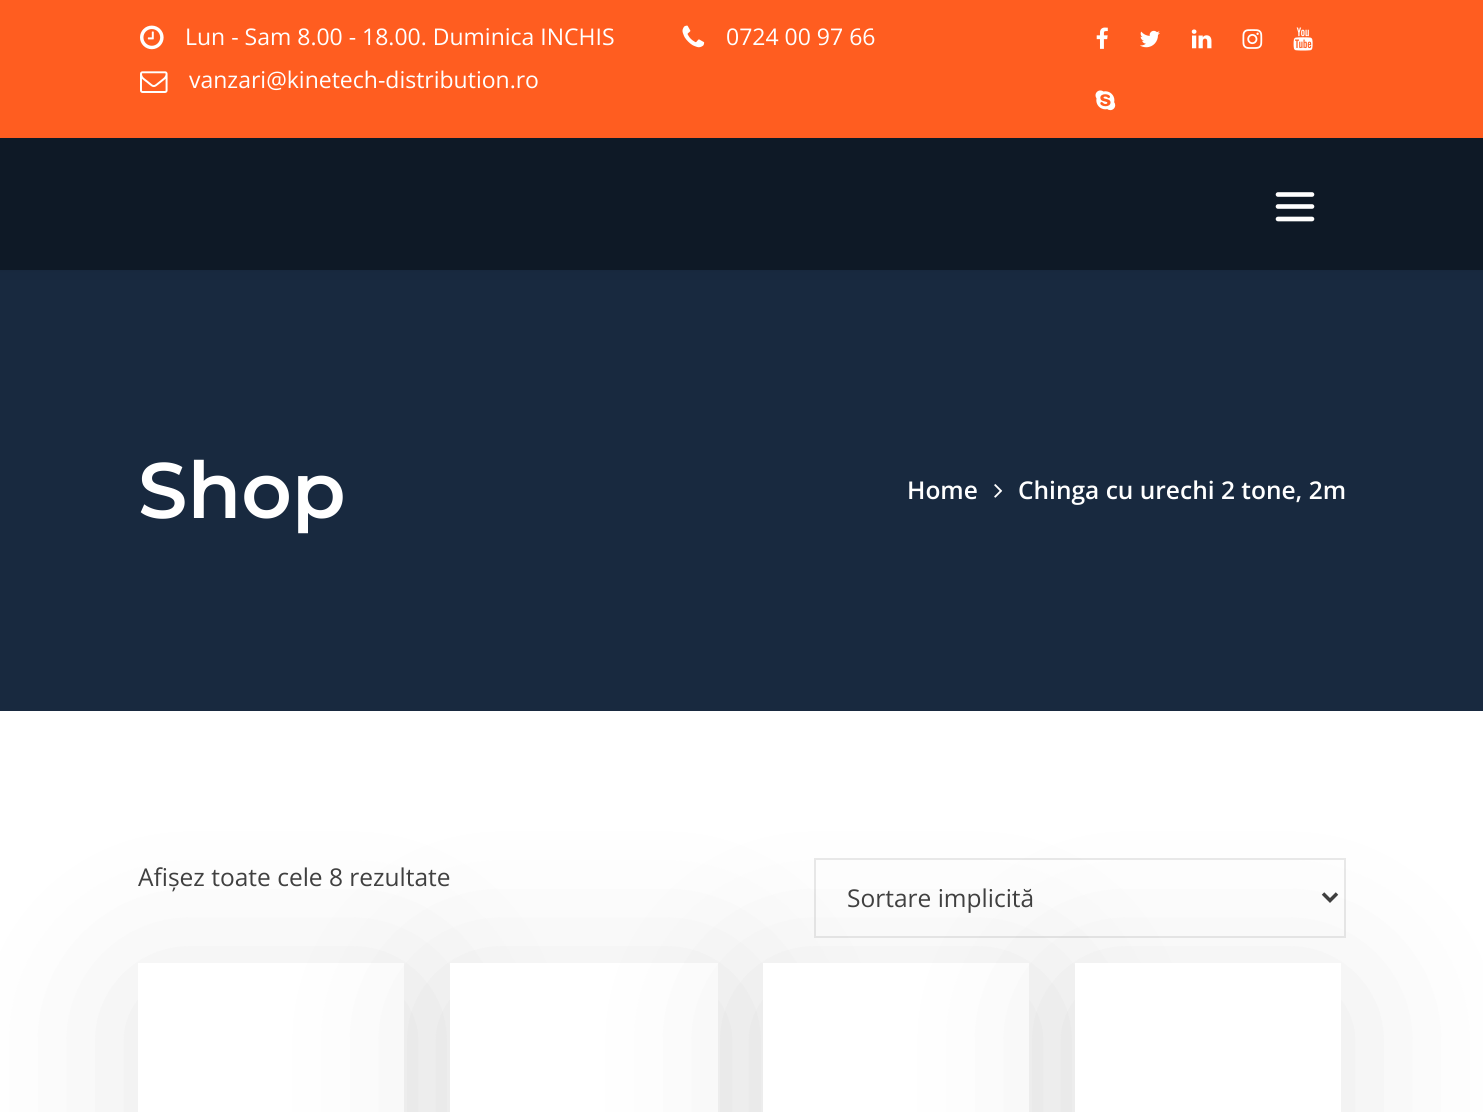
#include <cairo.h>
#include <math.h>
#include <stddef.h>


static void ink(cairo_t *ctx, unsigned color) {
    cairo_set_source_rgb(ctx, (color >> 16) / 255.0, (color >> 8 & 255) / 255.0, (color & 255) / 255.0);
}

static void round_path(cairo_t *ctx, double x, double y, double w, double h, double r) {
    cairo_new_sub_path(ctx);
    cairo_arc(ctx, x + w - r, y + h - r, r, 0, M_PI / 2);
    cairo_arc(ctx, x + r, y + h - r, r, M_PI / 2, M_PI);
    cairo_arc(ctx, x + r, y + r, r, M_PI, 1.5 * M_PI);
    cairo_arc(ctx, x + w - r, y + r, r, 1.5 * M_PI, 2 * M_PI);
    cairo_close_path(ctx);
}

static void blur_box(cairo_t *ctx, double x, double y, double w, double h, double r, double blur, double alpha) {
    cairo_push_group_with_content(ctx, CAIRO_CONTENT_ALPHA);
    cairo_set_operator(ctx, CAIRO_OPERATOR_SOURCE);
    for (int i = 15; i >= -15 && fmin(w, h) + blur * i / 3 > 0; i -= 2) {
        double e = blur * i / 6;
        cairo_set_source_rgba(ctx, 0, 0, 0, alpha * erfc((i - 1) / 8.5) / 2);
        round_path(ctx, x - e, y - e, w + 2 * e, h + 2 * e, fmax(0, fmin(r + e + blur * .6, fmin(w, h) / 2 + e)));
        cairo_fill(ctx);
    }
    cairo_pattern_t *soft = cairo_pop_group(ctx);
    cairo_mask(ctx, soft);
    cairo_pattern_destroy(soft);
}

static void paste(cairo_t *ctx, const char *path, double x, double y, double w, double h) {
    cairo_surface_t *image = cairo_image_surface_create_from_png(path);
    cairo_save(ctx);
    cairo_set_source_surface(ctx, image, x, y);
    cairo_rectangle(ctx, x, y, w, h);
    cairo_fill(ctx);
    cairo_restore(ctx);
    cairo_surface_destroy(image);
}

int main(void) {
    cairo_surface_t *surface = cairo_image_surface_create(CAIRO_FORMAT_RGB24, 1483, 1112);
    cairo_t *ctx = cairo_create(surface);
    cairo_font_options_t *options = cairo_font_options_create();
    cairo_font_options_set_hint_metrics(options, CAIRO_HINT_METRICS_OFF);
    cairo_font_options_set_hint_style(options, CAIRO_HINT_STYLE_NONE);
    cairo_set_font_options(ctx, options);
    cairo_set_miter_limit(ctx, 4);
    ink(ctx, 0xFFFFFF);
    cairo_paint(ctx);
    ink(ctx, 0xFF5D20);
    cairo_rectangle(ctx, 0, 0, 1483, 138);
    cairo_fill(ctx);
    paste(ctx, "media/1.png", 140, 25, 24, 25);
    cairo_select_font_face(ctx, "Open Sans", CAIRO_FONT_SLANT_NORMAL, CAIRO_FONT_WEIGHT_NORMAL);
    cairo_set_font_size(ctx, 23);
    ink(ctx, 0xFFFFFF);
    cairo_move_to(ctx, 185, 45);
    cairo_show_text(ctx, "Lun - Sam 8.00 - 18.00. Duminica INCHIS");
    paste(ctx, "media/2.png", 682, 25, 23, 23);
    cairo_move_to(ctx, 726, 45);
    cairo_show_text(ctx, "0724 00 97 66");
    paste(ctx, "media/3.png", 140, 71, 28, 22);
    cairo_move_to(ctx, 189, 88);
    cairo_show_text(ctx, "vanzari@kinetech-distribution.ro");
    paste(ctx, "media/4.png", 1096, 27, 12, 22);
    paste(ctx, "media/5.png", 1140, 30, 20, 18);
    paste(ctx, "media/6.png", 1191, 29, 21, 20);
    paste(ctx, "media/7.png", 1242, 29, 21, 20);
    paste(ctx, "media/8.png", 1293, 27, 20, 24);
    paste(ctx, "media/9.png", 1095, 90, 21, 21);
    ink(ctx, 0x18293F);
    cairo_rectangle(ctx, 0, 270, 1483, 441);
    cairo_fill(ctx);
    ink(ctx, 0x000000);
    blur_box(ctx, 0, 140, 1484, 131, 0, 2, 0.05);
    ink(ctx, 0x0E1926);
    cairo_rectangle(ctx, 0, 138, 1483, 132);
    cairo_fill(ctx);
    cairo_new_path(ctx);
    cairo_move_to(ctx, 1278, 194.5);
    cairo_line_to(ctx, 1312, 194.5);
    cairo_move_to(ctx, 1278, 206.5);
    cairo_line_to(ctx, 1312, 206.5);
    cairo_move_to(ctx, 1278, 219);
    cairo_line_to(ctx, 1312, 219);
    ink(ctx, 0xFFFFFF);
    cairo_set_line_width(ctx, 4.6);
    cairo_set_line_cap(ctx, CAIRO_LINE_CAP_ROUND);
    cairo_stroke(ctx);
    cairo_select_font_face(ctx, "Montserrat SemiBold", CAIRO_FONT_SLANT_NORMAL, CAIRO_FONT_WEIGHT_NORMAL);
    cairo_set_font_size(ctx, 78.5);
    cairo_move_to(ctx, 138, 518);
    cairo_show_text(ctx, "Shop");
    cairo_select_font_face(ctx, "Open Sans SemiBold", CAIRO_FONT_SLANT_NORMAL, CAIRO_FONT_WEIGHT_NORMAL);
    cairo_set_font_size(ctx, 24.5);
    cairo_move_to(ctx, 907, 499);
    cairo_show_text(ctx, "Home");
    paste(ctx, "media/10.png", 994, 484, 9, 14);
    cairo_move_to(ctx, 1018, 499);
    cairo_show_text(ctx, "Chinga cu urechi 2 tone, 2m");
    ink(ctx, 0x000000);
    blur_box(ctx, 138, 989, 266, 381, 0, 86, 0.1);
    ink(ctx, 0xFFFFFF);
    cairo_rectangle(ctx, 138, 963, 266, 149);
    cairo_fill(ctx);
    cairo_rectangle(ctx, 815, 859, 530, 78);
    ink(ctx, 0xE9E9E9);
    cairo_set_line_width(ctx, 2);
    cairo_set_line_cap(ctx, CAIRO_LINE_CAP_BUTT);
    cairo_stroke(ctx);
    ink(ctx, 0x000000);
    blur_box(ctx, 450, 989, 268, 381, 0, 86, 0.1);
    ink(ctx, 0xFFFFFF);
    cairo_rectangle(ctx, 450, 963, 268, 149);
    cairo_fill(ctx);
    ink(ctx, 0x000000);
    blur_box(ctx, 763, 989, 266, 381, 0, 86, 0.1);
    ink(ctx, 0xFFFFFF);
    cairo_rectangle(ctx, 763, 963, 266, 149);
    cairo_fill(ctx);
    cairo_new_path(ctx);
    cairo_move_to(ctx, 1323, 893.5);
    cairo_line_to(ctx, 1330, 900.5);
    cairo_line_to(ctx, 1337, 893.5);
    ink(ctx, 0x404040);
    cairo_set_line_width(ctx, 3.5);
    cairo_stroke(ctx);
    ink(ctx, 0x000000);
    blur_box(ctx, 1075, 989, 266, 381, 0, 86, 0.1);
    ink(ctx, 0xFFFFFF);
    cairo_rectangle(ctx, 1075, 963, 266, 149);
    cairo_fill(ctx);
    cairo_select_font_face(ctx, "Open Sans", CAIRO_FONT_SLANT_NORMAL, CAIRO_FONT_WEIGHT_NORMAL);
    ink(ctx, 0x404040);
    cairo_move_to(ctx, 138, 886);
    cairo_show_text(ctx, "Afișez toate cele 8 rezultate");
    cairo_move_to(ctx, 847, 907);
    cairo_show_text(ctx, "Sortare implicită");
    cairo_surface_write_to_png(surface, "image.png");
    cairo_font_options_destroy(options);
    cairo_destroy(ctx);
    cairo_surface_destroy(surface);
    return 0;
}
